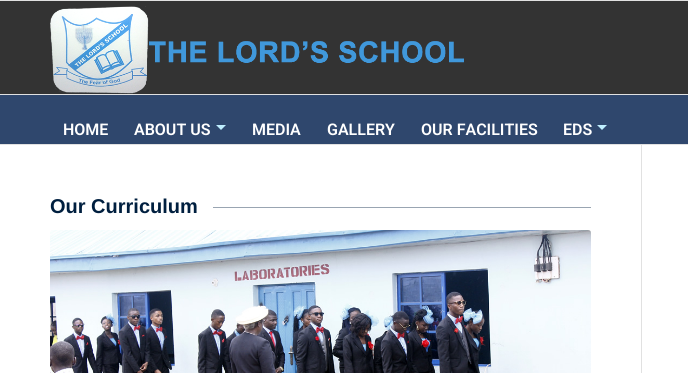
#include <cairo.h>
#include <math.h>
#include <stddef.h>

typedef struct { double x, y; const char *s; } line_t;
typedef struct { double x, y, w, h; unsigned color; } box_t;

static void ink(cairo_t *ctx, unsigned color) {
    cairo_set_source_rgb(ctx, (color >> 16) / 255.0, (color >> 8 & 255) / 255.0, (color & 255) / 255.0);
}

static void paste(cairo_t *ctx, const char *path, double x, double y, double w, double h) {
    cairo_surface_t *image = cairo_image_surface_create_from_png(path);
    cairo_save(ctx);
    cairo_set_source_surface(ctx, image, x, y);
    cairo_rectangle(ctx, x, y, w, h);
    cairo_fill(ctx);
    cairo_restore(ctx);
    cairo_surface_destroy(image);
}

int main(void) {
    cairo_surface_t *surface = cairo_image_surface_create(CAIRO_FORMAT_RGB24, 688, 373);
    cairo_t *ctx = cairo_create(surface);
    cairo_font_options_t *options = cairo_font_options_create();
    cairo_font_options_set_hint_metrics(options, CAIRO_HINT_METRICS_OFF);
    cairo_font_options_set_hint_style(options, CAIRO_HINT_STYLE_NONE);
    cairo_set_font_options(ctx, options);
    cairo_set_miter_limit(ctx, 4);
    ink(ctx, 0xFFFFFF);
    cairo_paint(ctx);
    {
        static const box_t items[] = {
            {0, 1, 688, 93, 0x333333},
            {0, 0, 688, 1, 0xE1E1E1},
            {0, 144, 688, 1, 0xE1E1E1},
        };
        for (size_t i = 0; i < sizeof items / sizeof *items; i++) {
            ink(ctx, items[i].color);
            cairo_rectangle(ctx, items[i].x, items[i].y, items[i].w, items[i].h);
            cairo_fill(ctx);
        }
    }
    paste(ctx, "media/1.png", 50, 6, 414, 88);
    ink(ctx, 0x2F476D);
    cairo_rectangle(ctx, 0, 95, 688, 49);
    cairo_fill(ctx);
    ink(ctx, 0xE1E1E1);
    cairo_rectangle(ctx, 0, 94, 688, 1);
    cairo_fill(ctx);
    cairo_select_font_face(ctx, "Roboto SemiBold", CAIRO_FONT_SLANT_NORMAL, CAIRO_FONT_WEIGHT_NORMAL);
    cairo_set_font_size(ctx, 16);
    ink(ctx, 0xFFFFFF);
    cairo_move_to(ctx, 63, 135);
    cairo_show_text(ctx, "HOME");
    cairo_move_to(ctx, 134, 135);
    cairo_show_text(ctx, "ABOUT US");
    ink(ctx, 0xBFEFFF);
    cairo_new_path(ctx);
    cairo_move_to(ctx, 216, 125);
    cairo_line_to(ctx, 226, 125);
    cairo_line_to(ctx, 221, 130);
    cairo_close_path(ctx);
    cairo_fill(ctx);
    ink(ctx, 0xFFFFFF);
    {
        static const line_t items[] = {
            {252, 135, "MEDIA"},
            {327, 135, "GALLERY"},
            {421, 135, "OUR FACILITIES"},
            {563, 135, "EDS"},
        };
        for (size_t i = 0; i < sizeof items / sizeof *items; i++) {
            cairo_move_to(ctx, items[i].x, items[i].y);
            cairo_show_text(ctx, items[i].s);
        }
    }
    ink(ctx, 0xBFEFFF);
    cairo_new_path(ctx);
    cairo_move_to(ctx, 597, 125);
    cairo_line_to(ctx, 607, 125);
    cairo_line_to(ctx, 602, 130);
    cairo_close_path(ctx);
    cairo_fill(ctx);
    ink(ctx, 0xE1E1E1);
    cairo_rectangle(ctx, 641, 145, 1, 228);
    cairo_fill(ctx);
    cairo_select_font_face(ctx, "Liberation Sans", CAIRO_FONT_SLANT_NORMAL, CAIRO_FONT_WEIGHT_BOLD);
    cairo_set_font_size(ctx, 20);
    ink(ctx, 0x001F3F);
    cairo_move_to(ctx, 50, 213);
    cairo_show_text(ctx, "Our Curriculum");
    ink(ctx, 0x99A5B2);
    cairo_rectangle(ctx, 213, 207, 378, 1);
    cairo_fill(ctx);
    paste(ctx, "media/2.png", 50, 230, 541, 143);
    cairo_surface_write_to_png(surface, "image.png");
    cairo_font_options_destroy(options);
    cairo_destroy(ctx);
    cairo_surface_destroy(surface);
    return 0;
}
